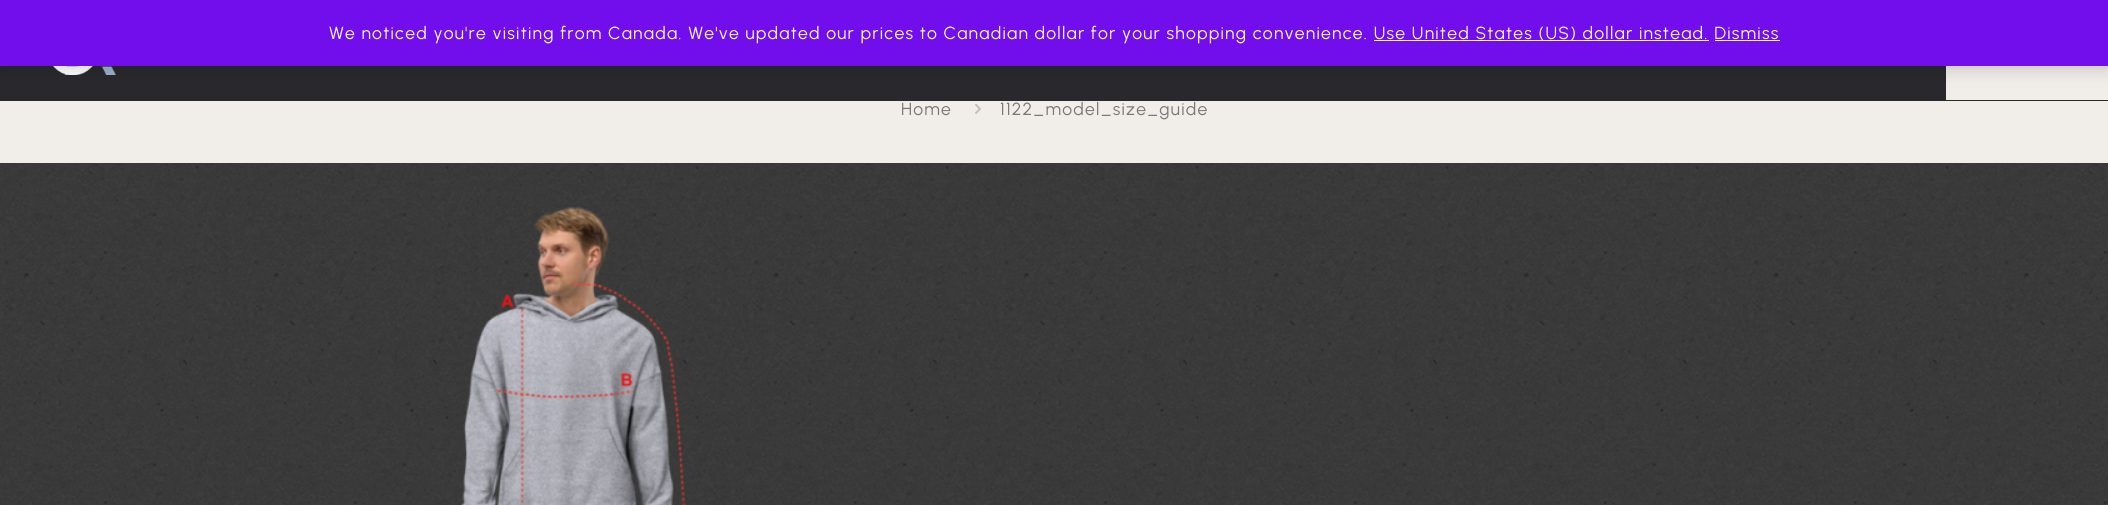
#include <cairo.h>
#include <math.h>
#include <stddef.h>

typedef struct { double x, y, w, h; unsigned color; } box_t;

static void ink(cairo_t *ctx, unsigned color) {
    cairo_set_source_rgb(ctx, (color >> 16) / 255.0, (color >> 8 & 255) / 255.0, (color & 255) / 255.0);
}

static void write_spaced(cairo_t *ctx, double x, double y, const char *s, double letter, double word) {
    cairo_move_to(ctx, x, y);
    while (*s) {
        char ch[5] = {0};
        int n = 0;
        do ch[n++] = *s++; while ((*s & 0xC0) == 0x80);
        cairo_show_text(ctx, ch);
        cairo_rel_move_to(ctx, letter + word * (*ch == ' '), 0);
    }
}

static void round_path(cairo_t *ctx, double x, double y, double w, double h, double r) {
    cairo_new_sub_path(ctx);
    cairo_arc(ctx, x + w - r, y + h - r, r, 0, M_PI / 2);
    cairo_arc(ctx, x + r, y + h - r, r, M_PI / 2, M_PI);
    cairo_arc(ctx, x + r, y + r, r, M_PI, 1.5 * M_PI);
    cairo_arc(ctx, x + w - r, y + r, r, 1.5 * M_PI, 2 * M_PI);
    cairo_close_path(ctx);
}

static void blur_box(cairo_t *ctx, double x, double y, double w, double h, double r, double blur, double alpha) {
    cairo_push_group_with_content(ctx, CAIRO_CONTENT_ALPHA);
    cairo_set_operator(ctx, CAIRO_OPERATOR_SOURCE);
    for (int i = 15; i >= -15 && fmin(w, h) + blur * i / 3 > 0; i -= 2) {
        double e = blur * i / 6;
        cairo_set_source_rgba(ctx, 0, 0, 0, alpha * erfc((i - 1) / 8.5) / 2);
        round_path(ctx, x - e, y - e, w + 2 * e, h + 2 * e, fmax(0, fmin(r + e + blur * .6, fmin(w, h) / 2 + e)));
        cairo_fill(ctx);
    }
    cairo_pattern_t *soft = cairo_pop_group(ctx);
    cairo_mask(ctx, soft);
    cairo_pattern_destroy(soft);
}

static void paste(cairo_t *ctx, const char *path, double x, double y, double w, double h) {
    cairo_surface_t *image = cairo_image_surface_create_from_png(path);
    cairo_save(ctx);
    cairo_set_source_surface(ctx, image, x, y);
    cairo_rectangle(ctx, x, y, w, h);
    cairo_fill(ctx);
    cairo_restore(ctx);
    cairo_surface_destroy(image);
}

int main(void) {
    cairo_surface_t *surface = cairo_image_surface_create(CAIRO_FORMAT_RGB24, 2108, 505);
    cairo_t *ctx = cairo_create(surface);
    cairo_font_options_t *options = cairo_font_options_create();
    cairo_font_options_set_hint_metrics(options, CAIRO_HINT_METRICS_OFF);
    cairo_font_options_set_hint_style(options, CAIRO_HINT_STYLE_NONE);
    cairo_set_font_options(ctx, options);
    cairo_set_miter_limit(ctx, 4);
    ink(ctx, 0xFFFFFF);
    cairo_paint(ctx);
    paste(ctx, "media/1.png", 0, 163, 2108, 342);
    ink(ctx, 0xF1EDE9);
    cairo_rectangle(ctx, 0, 66, 2108, 97);
    cairo_fill(ctx);
    ink(ctx, 0x29282D);
    cairo_rectangle(ctx, 0, 66, 1946, 34);
    cairo_fill(ctx);
    paste(ctx, "media/2.png", 52, 66, 64, 9);
    ink(ctx, 0x000000);
    blur_box(ctx, 0, 1, 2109, 67, 0, 9, 0.2);
    ink(ctx, 0x720EEC);
    cairo_rectangle(ctx, 0, 0, 2108, 66);
    cairo_fill(ctx);
    cairo_select_font_face(ctx, "Urbanist", CAIRO_FONT_SLANT_NORMAL, CAIRO_FONT_WEIGHT_NORMAL);
    cairo_set_font_size(ctx, 17.5);
    ink(ctx, 0xFCFBFE);
    write_spaced(ctx, 329, 39, "We noticed you're visiting from Canada. We've updated our prices to Canadian dollar for your shopping convenience. Use United States (US) dollar instead. Dismiss", 1.25, 0);
    {
        static const box_t items[] = {
            {1374, 40, 335, 1, 0xFCFBFE},
            {1715, 40, 65, 1, 0xFCFBFE},
            {0, 100, 2108, 1, 0x29282D},
        };
        for (size_t i = 0; i < sizeof items / sizeof *items; i++) {
            ink(ctx, items[i].color);
            cairo_rectangle(ctx, items[i].x, items[i].y, items[i].w, items[i].h);
            cairo_fill(ctx);
        }
    }
    ink(ctx, 0x797778);
    write_spaced(ctx, 901, 115, "Home", 1.25, 0);
    paste(ctx, "media/3.png", 975, 103, 6, 11);
    write_spaced(ctx, 1000, 115, "1122_model_size_guide", 1.25, 0);
    paste(ctx, "media/4.png", 461, 206, 225, 299);
    cairo_surface_write_to_png(surface, "image.png");
    cairo_font_options_destroy(options);
    cairo_destroy(ctx);
    cairo_surface_destroy(surface);
    return 0;
}
